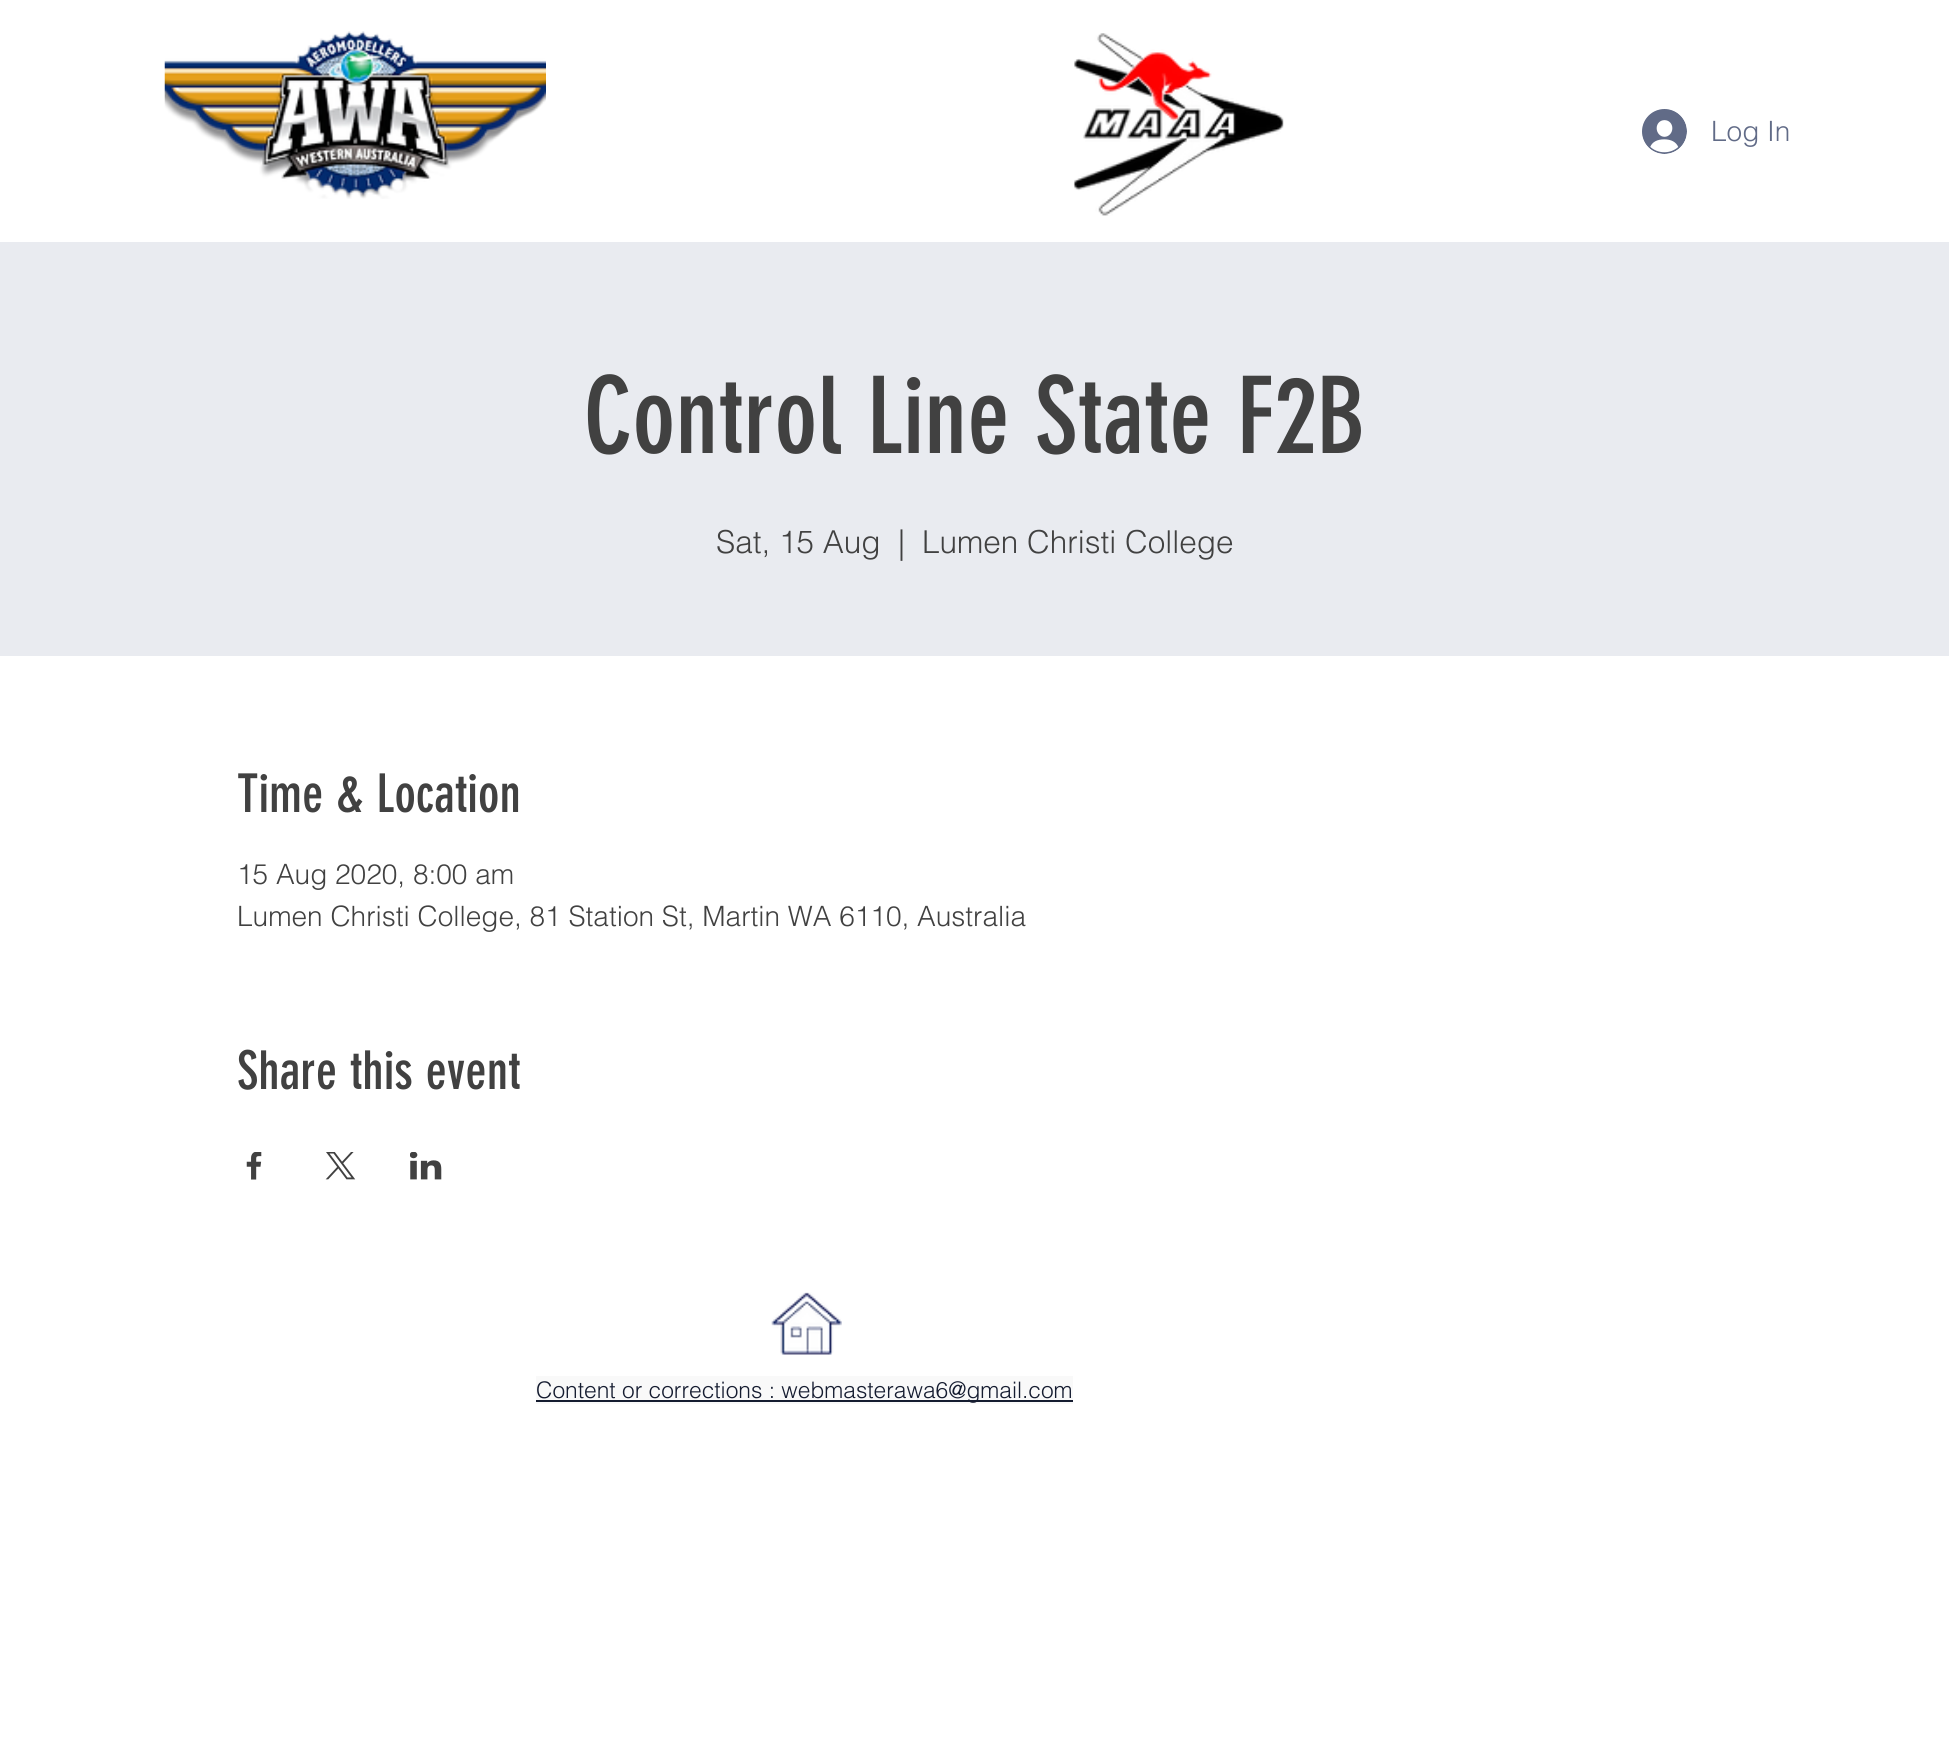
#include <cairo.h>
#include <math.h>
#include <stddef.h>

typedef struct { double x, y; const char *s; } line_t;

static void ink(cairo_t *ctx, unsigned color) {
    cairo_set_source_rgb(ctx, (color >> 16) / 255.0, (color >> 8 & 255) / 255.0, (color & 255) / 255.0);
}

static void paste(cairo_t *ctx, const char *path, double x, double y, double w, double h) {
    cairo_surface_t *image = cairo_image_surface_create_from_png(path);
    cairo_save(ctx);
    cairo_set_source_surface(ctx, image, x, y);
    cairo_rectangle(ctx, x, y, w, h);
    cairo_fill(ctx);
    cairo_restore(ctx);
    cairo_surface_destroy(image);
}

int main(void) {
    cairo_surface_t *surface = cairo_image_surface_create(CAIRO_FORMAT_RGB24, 1949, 1759);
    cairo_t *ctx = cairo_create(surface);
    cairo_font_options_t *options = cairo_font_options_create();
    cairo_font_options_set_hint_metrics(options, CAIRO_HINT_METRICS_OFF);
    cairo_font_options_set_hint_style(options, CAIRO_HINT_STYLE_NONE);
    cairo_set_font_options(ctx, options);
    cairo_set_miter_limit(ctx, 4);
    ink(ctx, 0xFFFFFF);
    cairo_paint(ctx);
    paste(ctx, "media/1.png", 164, 31, 382, 168);
    paste(ctx, "media/2.png", 1073, 33, 211, 183);
    paste(ctx, "media/3.png", 1642, 109, 45, 45);
    cairo_select_font_face(ctx, "helvetica Light", CAIRO_FONT_SLANT_NORMAL, CAIRO_FONT_WEIGHT_NORMAL);
    cairo_set_font_size(ctx, 28);
    ink(ctx, 0x616B87);
    cairo_move_to(ctx, 1711, 141);
    cairo_show_text(ctx, "Log In");
    ink(ctx, 0xE9EBF0);
    cairo_rectangle(ctx, 0, 242, 1949, 414);
    cairo_fill(ctx);
    cairo_select_font_face(ctx, "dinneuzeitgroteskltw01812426", CAIRO_FONT_SLANT_NORMAL, CAIRO_FONT_WEIGHT_NORMAL);
    cairo_set_font_size(ctx, 105);
    ink(ctx, 0x414141);
    cairo_move_to(ctx, 584, 453);
    cairo_show_text(ctx, "Control Line State F2B");
    cairo_select_font_face(ctx, "helvetica Light", CAIRO_FONT_SLANT_NORMAL, CAIRO_FONT_WEIGHT_NORMAL);
    cairo_set_font_size(ctx, 31.5);
    {
        static const line_t items[] = {
            {716, 553, "Sat, 15 Aug"},
            {898, 553, "|"},
            {922, 553, "Lumen Christi College"},
        };
        for (size_t i = 0; i < sizeof items / sizeof *items; i++) {
            cairo_move_to(ctx, items[i].x, items[i].y);
            cairo_show_text(ctx, items[i].s);
        }
    }
    cairo_select_font_face(ctx, "dinneuzeitgroteskltw01812426", CAIRO_FONT_SLANT_NORMAL, CAIRO_FONT_WEIGHT_NORMAL);
    cairo_set_font_size(ctx, 52.5);
    cairo_move_to(ctx, 237, 812);
    cairo_show_text(ctx, "Time & Location");
    cairo_select_font_face(ctx, "helvetica Light", CAIRO_FONT_SLANT_NORMAL, CAIRO_FONT_WEIGHT_NORMAL);
    cairo_set_font_size(ctx, 28);
    cairo_move_to(ctx, 237, 884);
    cairo_show_text(ctx, "15 Aug 2020, 8:00 am");
    cairo_move_to(ctx, 237, 926);
    cairo_show_text(ctx, "Lumen Christi College, 81 Station St, Martin WA 6110, Australia");
    cairo_select_font_face(ctx, "dinneuzeitgroteskltw01812426", CAIRO_FONT_SLANT_NORMAL, CAIRO_FONT_WEIGHT_NORMAL);
    cairo_set_font_size(ctx, 52.5);
    cairo_move_to(ctx, 237, 1089);
    cairo_show_text(ctx, "Share this event");
    paste(ctx, "media/4.png", 246, 1152, 16, 28);
    paste(ctx, "media/5.png", 325, 1152, 31, 28);
    paste(ctx, "media/6.png", 410, 1152, 32, 28);
    paste(ctx, "media/7.png", 771, 1292, 71, 63);
    ink(ctx, 0xF9F9F9);
    cairo_rectangle(ctx, 536, 1376, 537, 28);
    cairo_fill(ctx);
    ink(ctx, 0x151C30);
    cairo_rectangle(ctx, 536, 1400, 537, 2);
    cairo_fill(ctx);
    cairo_select_font_face(ctx, "helvetica Light", CAIRO_FONT_SLANT_NORMAL, CAIRO_FONT_WEIGHT_NORMAL);
    cairo_set_font_size(ctx, 22.75);
    cairo_move_to(ctx, 536, 1398);
    cairo_show_text(ctx, "Content or corrections : webmasterawa6@gmail.com");
    cairo_surface_write_to_png(surface, "image.png");
    cairo_font_options_destroy(options);
    cairo_destroy(ctx);
    cairo_surface_destroy(surface);
    return 0;
}
